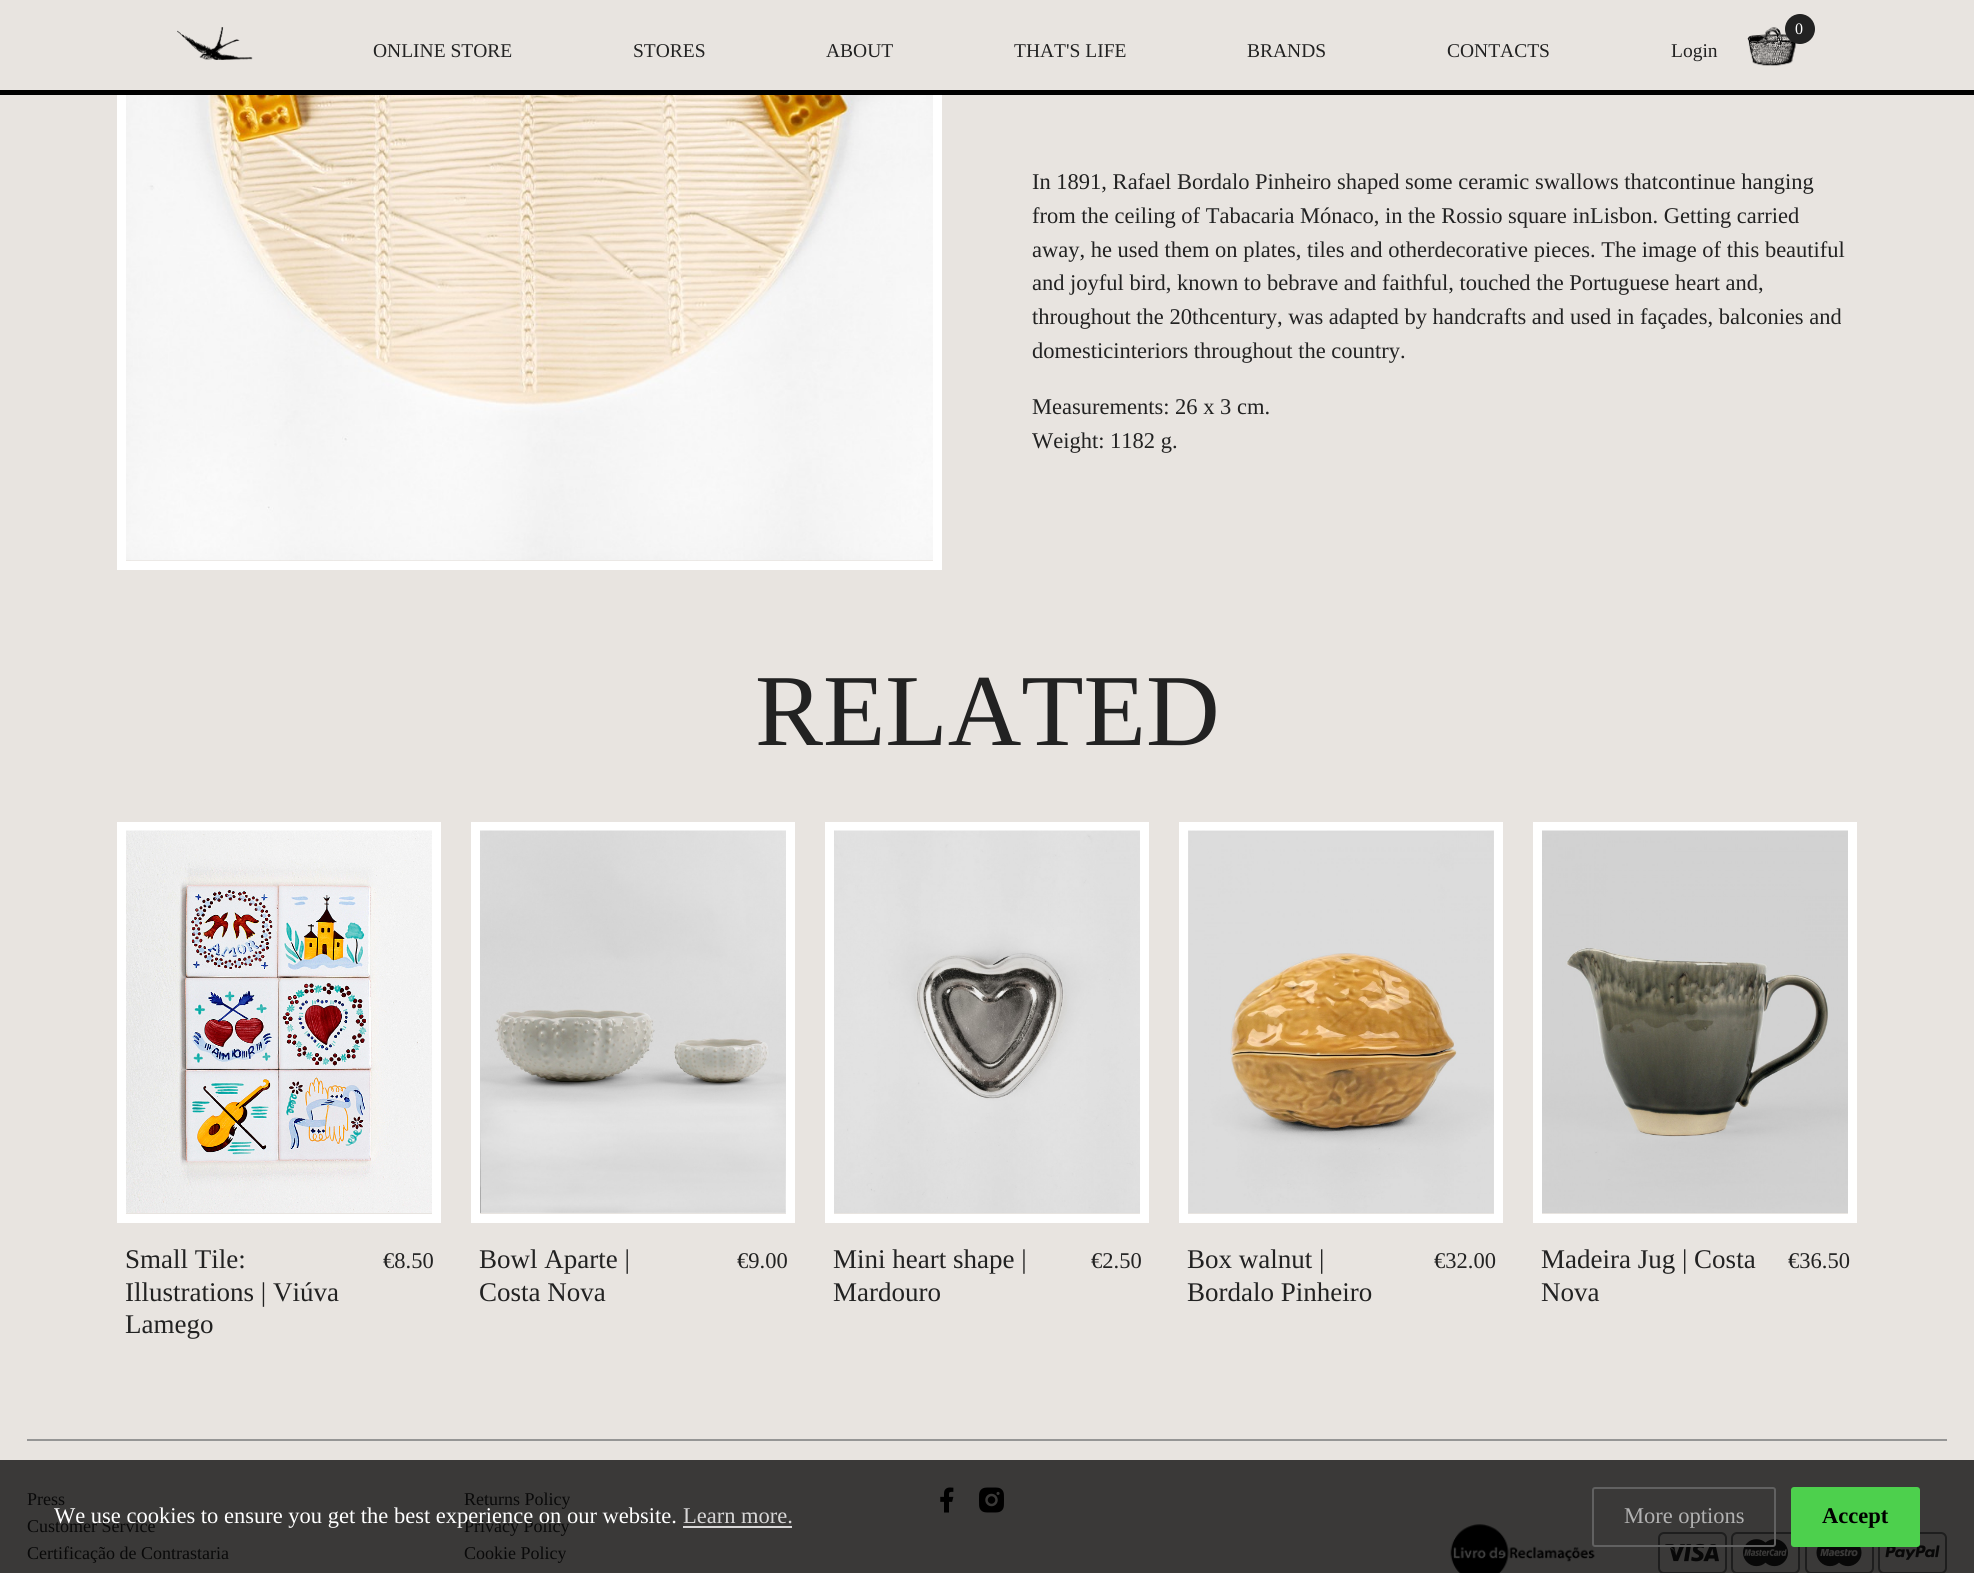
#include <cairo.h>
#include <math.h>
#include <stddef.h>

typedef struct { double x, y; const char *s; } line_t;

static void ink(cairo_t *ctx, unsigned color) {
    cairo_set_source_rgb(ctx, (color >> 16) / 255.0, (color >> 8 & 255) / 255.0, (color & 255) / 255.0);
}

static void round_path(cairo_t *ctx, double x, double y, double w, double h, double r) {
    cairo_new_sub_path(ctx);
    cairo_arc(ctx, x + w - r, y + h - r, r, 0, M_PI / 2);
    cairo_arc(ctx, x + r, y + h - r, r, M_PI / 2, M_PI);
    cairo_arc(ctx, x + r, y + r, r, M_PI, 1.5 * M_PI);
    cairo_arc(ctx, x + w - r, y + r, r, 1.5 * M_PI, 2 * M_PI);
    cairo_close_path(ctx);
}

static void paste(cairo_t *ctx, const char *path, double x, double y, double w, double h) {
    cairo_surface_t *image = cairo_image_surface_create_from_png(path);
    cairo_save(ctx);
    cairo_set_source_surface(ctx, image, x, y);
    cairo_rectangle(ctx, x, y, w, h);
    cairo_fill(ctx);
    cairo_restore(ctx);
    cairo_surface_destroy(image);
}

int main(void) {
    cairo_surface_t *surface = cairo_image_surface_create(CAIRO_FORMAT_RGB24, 1974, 1573);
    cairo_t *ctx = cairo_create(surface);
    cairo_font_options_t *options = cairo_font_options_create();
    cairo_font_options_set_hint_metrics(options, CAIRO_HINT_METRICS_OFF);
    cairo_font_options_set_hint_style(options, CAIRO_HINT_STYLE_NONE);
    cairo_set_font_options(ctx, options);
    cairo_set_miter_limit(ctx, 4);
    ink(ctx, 0xE8E4E0);
    cairo_paint(ctx);
    ink(ctx, 0x3A3938);
    cairo_rectangle(ctx, 0, 1460, 1974, 113);
    cairo_fill(ctx);
    cairo_rectangle(ctx, 121.5, -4.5, 816, 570);
    ink(ctx, 0xFFFFFF);
    cairo_set_line_width(ctx, 9);
    cairo_stroke(ctx);
    ink(ctx, 0xE8E4E0);
    cairo_rectangle(ctx, 117, 0, 825, 90);
    cairo_fill(ctx);
    ink(ctx, 0x000000);
    cairo_rectangle(ctx, 0, 90, 1974, 5);
    cairo_fill(ctx);
    paste(ctx, "media/1.png", 177, 27, 76, 33);
    cairo_select_font_face(ctx, "Liberation Serif", CAIRO_FONT_SLANT_NORMAL, CAIRO_FONT_WEIGHT_NORMAL);
    cairo_set_font_size(ctx, 19.5);
    ink(ctx, 0x222222);
    {
        static const line_t items[] = {
            {373, 57, "ONLINE STORE"},
            {633, 57, "STORES"},
            {826, 57, "ABOUT"},
            {1014, 57, "THAT'S LIFE"},
            {1247, 57, "BRANDS"},
            {1447, 57, "CONTACTS"},
        };
        for (size_t i = 0; i < sizeof items / sizeof *items; i++) {
            cairo_move_to(ctx, items[i].x, items[i].y);
            cairo_show_text(ctx, items[i].s);
        }
    }
    paste(ctx, "media/2.png", 1747, 27, 50, 39);
    cairo_arc(ctx, 1800, 29, 15, 0, 2 * M_PI);
    cairo_fill(ctx);
    cairo_set_font_size(ctx, 16);
    ink(ctx, 0xFFFFFF);
    cairo_move_to(ctx, 1795, 34);
    cairo_show_text(ctx, "0");
    cairo_set_font_size(ctx, 19.5);
    ink(ctx, 0x222222);
    cairo_move_to(ctx, 1671, 57);
    cairo_show_text(ctx, "Login");
    paste(ctx, "media/3.png", 126, 95, 807, 466);
    cairo_set_font_size(ctx, 22.5);
    {
        static const line_t items[] = {
            {1032, 189, "In 1891, Rafael Bordalo Pinheiro shaped some ceramic swallows thatcontinue hanging"},
            {1032, 223, "from the ceiling of Tabacaria Mónaco, in the Rossio square inLisbon. Getting carried"},
            {1032, 257, "away, he used them on plates, tiles and otherdecorative pieces. The image of this beautiful"},
            {1032, 290, "and joyful bird, known to bebrave and faithful, touched the Portuguese heart and,"},
            {1032, 324, "throughout the 20thcentury, was adapted by handcrafts and used in façades, balconies and"},
            {1032, 358, "domesticinteriors throughout the country."},
            {1032, 414, "Measurements: 26 x 3 cm."},
            {1032, 448, "Weight: 1182 g."},
        };
        for (size_t i = 0; i < sizeof items / sizeof *items; i++) {
            cairo_move_to(ctx, items[i].x, items[i].y);
            cairo_show_text(ctx, items[i].s);
        }
    }
    cairo_set_font_size(ctx, 102);
    cairo_move_to(ctx, 755, 745);
    cairo_show_text(ctx, "RELATED");
    cairo_rectangle(ctx, 121.5, 826.5, 315, 392);
    ink(ctx, 0xFFFFFF);
    cairo_stroke(ctx);
    paste(ctx, "media/4.png", 126, 830, 306, 383);
    cairo_set_font_size(ctx, 27);
    ink(ctx, 0x222222);
    {
        static const line_t items[] = {
            {125, 1268, "Small Tile:"},
            {125, 1301, "Illustrations | Viúva"},
            {125, 1333, "Lamego"},
        };
        for (size_t i = 0; i < sizeof items / sizeof *items; i++) {
            cairo_move_to(ctx, items[i].x, items[i].y);
            cairo_show_text(ctx, items[i].s);
        }
    }
    cairo_set_font_size(ctx, 22.5);
    cairo_move_to(ctx, 383, 1268);
    cairo_show_text(ctx, "€8.50");
    cairo_rectangle(ctx, 475.5, 826.5, 315, 392);
    ink(ctx, 0xFFFFFF);
    cairo_stroke(ctx);
    paste(ctx, "media/5.png", 480, 830, 306, 383);
    cairo_set_font_size(ctx, 27);
    ink(ctx, 0x222222);
    cairo_move_to(ctx, 479, 1268);
    cairo_show_text(ctx, "Bowl Aparte |");
    cairo_move_to(ctx, 479, 1301);
    cairo_show_text(ctx, "Costa Nova");
    cairo_set_font_size(ctx, 22.5);
    cairo_move_to(ctx, 737, 1268);
    cairo_show_text(ctx, "€9.00");
    cairo_rectangle(ctx, 829.5, 826.5, 315, 392);
    ink(ctx, 0xFFFFFF);
    cairo_stroke(ctx);
    paste(ctx, "media/6.png", 834, 830, 306, 383);
    cairo_set_font_size(ctx, 27);
    ink(ctx, 0x222222);
    cairo_move_to(ctx, 833, 1268);
    cairo_show_text(ctx, "Mini heart shape |");
    cairo_move_to(ctx, 833, 1301);
    cairo_show_text(ctx, "Mardouro");
    cairo_set_font_size(ctx, 22.5);
    cairo_move_to(ctx, 1091, 1268);
    cairo_show_text(ctx, "€2.50");
    cairo_rectangle(ctx, 1183.5, 826.5, 315, 392);
    ink(ctx, 0xFFFFFF);
    cairo_stroke(ctx);
    paste(ctx, "media/7.png", 1188, 830, 306, 383);
    cairo_set_font_size(ctx, 27);
    ink(ctx, 0x222222);
    cairo_move_to(ctx, 1187, 1268);
    cairo_show_text(ctx, "Box walnut |");
    cairo_move_to(ctx, 1187, 1301);
    cairo_show_text(ctx, "Bordalo Pinheiro");
    cairo_set_font_size(ctx, 22.5);
    cairo_move_to(ctx, 1434, 1268);
    cairo_show_text(ctx, "€32.00");
    cairo_rectangle(ctx, 1537.5, 826.5, 315, 392);
    ink(ctx, 0xFFFFFF);
    cairo_stroke(ctx);
    paste(ctx, "media/8.png", 1542, 830, 306, 383);
    cairo_set_font_size(ctx, 27);
    ink(ctx, 0x222222);
    cairo_move_to(ctx, 1541, 1268);
    cairo_show_text(ctx, "Madeira Jug | Costa");
    cairo_move_to(ctx, 1541, 1301);
    cairo_show_text(ctx, "Nova");
    cairo_set_font_size(ctx, 22.5);
    cairo_move_to(ctx, 1788, 1268);
    cairo_show_text(ctx, "€36.50");
    ink(ctx, 0x959595);
    cairo_rectangle(ctx, 27, 1439, 1920, 2);
    cairo_fill(ctx);
    cairo_set_font_size(ctx, 18);
    ink(ctx, 0x090909);
    {
        static const line_t items[] = {
            {27, 1505, "Press"},
            {464, 1505, "Returns Policy"},
            {27, 1532, "Customer Service"},
            {464, 1532, "Privacy Policy"},
            {27, 1559, "Certificação de Contrastaria"},
            {464, 1559, "Cookie Policy"},
        };
        for (size_t i = 0; i < sizeof items / sizeof *items; i++) {
            cairo_move_to(ctx, items[i].x, items[i].y);
            cairo_show_text(ctx, items[i].s);
        }
    }
    paste(ctx, "media/9.png", 940, 1487, 14, 26);
    paste(ctx, "media/10.png", 979, 1487, 25, 26);
    paste(ctx, "media/11.png", 1450, 1524, 145, 49);
    round_path(ctx, 1659, 1533, 67, 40, 5);
    ink(ctx, 0x1E1E1E);
    cairo_set_line_width(ctx, 2);
    cairo_stroke(ctx);
    paste(ctx, "media/12.png", 1665, 1543, 54, 19);
    round_path(ctx, 1732, 1533, 67, 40, 5);
    cairo_stroke(ctx);
    paste(ctx, "media/13.png", 1743, 1539, 45, 28);
    round_path(ctx, 1806, 1533, 67, 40, 5);
    cairo_stroke(ctx);
    paste(ctx, "media/14.png", 1816, 1547, 46, 20);
    round_path(ctx, 1879, 1533, 67, 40, 5);
    cairo_stroke(ctx);
    paste(ctx, "media/15.png", 1885, 1545, 55, 15);
    cairo_set_font_size(ctx, 22.5);
    ink(ctx, 0xFFFFFF);
    cairo_move_to(ctx, 54, 1523);
    cairo_show_text(ctx, "We use cookies to ensure you get the best experience on our website.");
    ink(ctx, 0xD8D7D7);
    cairo_move_to(ctx, 683, 1523);
    cairo_show_text(ctx, "Learn more.");
    cairo_rectangle(ctx, 683, 1526, 109, 2);
    cairo_fill(ctx);
    round_path(ctx, 1593, 1488, 182, 58, 2);
    ink(ctx, 0x616161);
    cairo_stroke(ctx);
    ink(ctx, 0xB1B1B1);
    cairo_move_to(ctx, 1624, 1523);
    cairo_show_text(ctx, "More options");
    ink(ctx, 0x4DD04D);
    round_path(ctx, 1791, 1487, 129, 60, 3);
    cairo_fill(ctx);
    cairo_select_font_face(ctx, "Liberation Serif", CAIRO_FONT_SLANT_NORMAL, CAIRO_FONT_WEIGHT_BOLD);
    ink(ctx, 0x000000);
    cairo_move_to(ctx, 1822, 1523);
    cairo_show_text(ctx, "Accept");
    cairo_surface_write_to_png(surface, "image.png");
    cairo_font_options_destroy(options);
    cairo_destroy(ctx);
    cairo_surface_destroy(surface);
    return 0;
}
